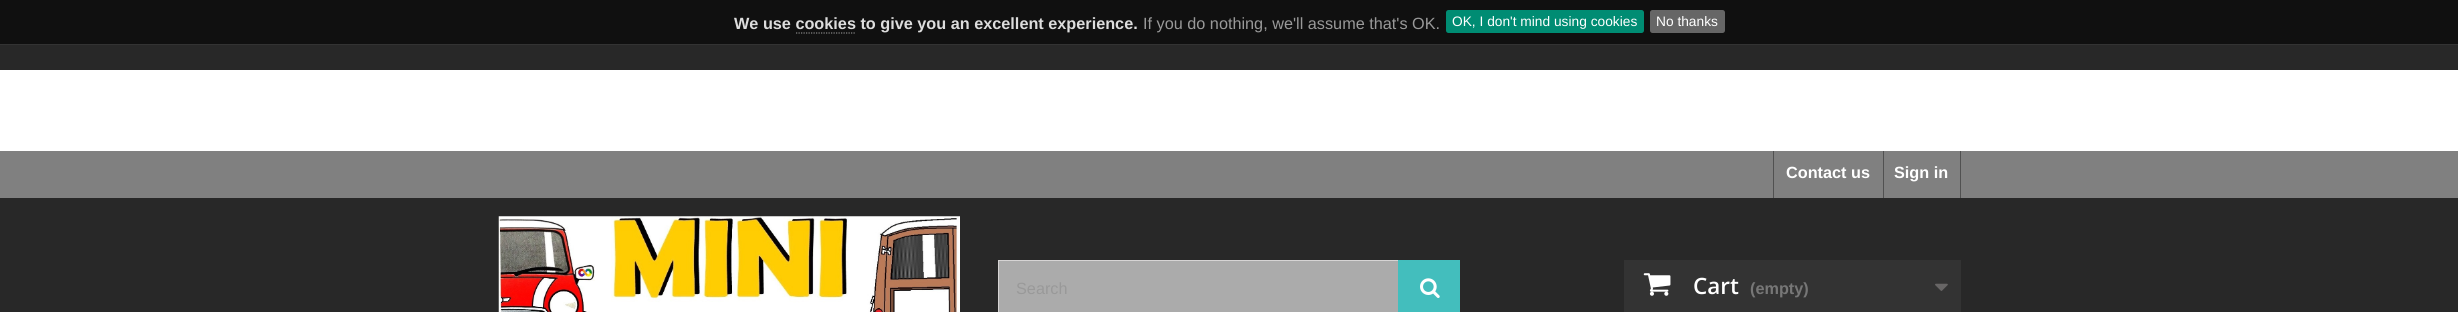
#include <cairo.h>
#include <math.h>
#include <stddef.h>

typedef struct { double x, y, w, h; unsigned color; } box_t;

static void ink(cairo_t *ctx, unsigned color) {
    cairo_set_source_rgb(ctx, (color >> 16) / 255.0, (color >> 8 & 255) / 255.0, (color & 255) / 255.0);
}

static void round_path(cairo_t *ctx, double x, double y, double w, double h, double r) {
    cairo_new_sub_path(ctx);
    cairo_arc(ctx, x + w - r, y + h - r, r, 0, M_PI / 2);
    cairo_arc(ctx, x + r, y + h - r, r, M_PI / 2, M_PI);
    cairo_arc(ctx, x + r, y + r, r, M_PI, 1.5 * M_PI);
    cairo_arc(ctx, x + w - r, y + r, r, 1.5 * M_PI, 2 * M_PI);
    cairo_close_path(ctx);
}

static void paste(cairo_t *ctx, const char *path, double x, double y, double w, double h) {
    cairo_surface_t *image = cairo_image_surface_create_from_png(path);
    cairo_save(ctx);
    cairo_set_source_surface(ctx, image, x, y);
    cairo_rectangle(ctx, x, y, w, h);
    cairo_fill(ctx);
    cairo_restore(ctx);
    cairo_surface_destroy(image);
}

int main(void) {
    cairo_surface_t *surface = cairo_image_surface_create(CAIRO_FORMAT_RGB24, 2458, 312);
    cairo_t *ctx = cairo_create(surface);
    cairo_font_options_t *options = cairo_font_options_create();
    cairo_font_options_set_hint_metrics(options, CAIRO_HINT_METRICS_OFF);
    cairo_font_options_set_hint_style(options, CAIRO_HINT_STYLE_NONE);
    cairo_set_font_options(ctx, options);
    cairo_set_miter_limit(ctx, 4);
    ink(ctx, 0x282828);
    cairo_paint(ctx);
    ink(ctx, 0x101010);
    cairo_rectangle(ctx, 0, 0, 2458, 44);
    cairo_fill(ctx);
    ink(ctx, 0x333333);
    cairo_rectangle(ctx, 0, 44, 2458, 1);
    cairo_fill(ctx);
    cairo_select_font_face(ctx, "Liberation Sans", CAIRO_FONT_SLANT_NORMAL, CAIRO_FONT_WEIGHT_BOLD);
    cairo_set_font_size(ctx, 16.25);
    ink(ctx, 0xDDDDDD);
    cairo_move_to(ctx, 734, 29);
    cairo_show_text(ctx, "We use cookies to give you an excellent experience.");
    cairo_new_path(ctx);
    cairo_move_to(ctx, 796, 33);
    cairo_line_to(ctx, 856, 33);
    ink(ctx, 0x888888);
    cairo_set_line_width(ctx, 1.2);
    cairo_set_dash(ctx, (double[]){1.25, 1.25}, 2, 0);
    cairo_stroke(ctx);
    cairo_select_font_face(ctx, "Liberation Sans", CAIRO_FONT_SLANT_NORMAL, CAIRO_FONT_WEIGHT_NORMAL);
    ink(ctx, 0x999999);
    cairo_move_to(ctx, 1143, 29);
    cairo_show_text(ctx, "If you do nothing, we'll assume that's OK.");
    ink(ctx, 0x008C73);
    round_path(ctx, 1446, 10, 198, 23, 2.5);
    cairo_fill(ctx);
    cairo_set_font_size(ctx, 13.75);
    ink(ctx, 0xFFFFFF);
    cairo_move_to(ctx, 1452, 26);
    cairo_show_text(ctx, "OK, I don't mind using cookies");
    ink(ctx, 0x666666);
    round_path(ctx, 1650, 10, 75, 23, 2.5);
    cairo_fill(ctx);
    ink(ctx, 0xFFFFFF);
    cairo_move_to(ctx, 1656, 26);
    cairo_show_text(ctx, "No thanks");
    {
        static const box_t items[] = {
            {0, 70, 2458, 81, 0xFFFFFF},
            {0, 151, 2458, 47, 0x808080},
            {1773, 151, 1, 47, 0x515151},
        };
        for (size_t i = 0; i < sizeof items / sizeof *items; i++) {
            ink(ctx, items[i].color);
            cairo_rectangle(ctx, items[i].x, items[i].y, items[i].w, items[i].h);
            cairo_fill(ctx);
        }
    }
    cairo_select_font_face(ctx, "Liberation Sans", CAIRO_FONT_SLANT_NORMAL, CAIRO_FONT_WEIGHT_BOLD);
    cairo_set_font_size(ctx, 16.25);
    ink(ctx, 0xFFFFFF);
    cairo_move_to(ctx, 1786, 178);
    cairo_show_text(ctx, "Contact us");
    ink(ctx, 0x515151);
    cairo_rectangle(ctx, 1960, 151, 1, 47);
    cairo_fill(ctx);
    cairo_rectangle(ctx, 1883, 151, 1, 47);
    cairo_fill(ctx);
    ink(ctx, 0xFFFFFF);
    cairo_move_to(ctx, 1894, 178);
    cairo_show_text(ctx, "Sign in");
    paste(ctx, "media/1.png", 498, 216, 462, 96);
    ink(ctx, 0xABABAB);
    cairo_rectangle(ctx, 999, 261, 399, 51);
    cairo_fill(ctx);
    cairo_rectangle(ctx, 998.5, 260.5, 461, 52);
    ink(ctx, 0xD6D4D4);
    cairo_set_line_width(ctx, 1);
    cairo_set_dash(ctx, NULL, 0, 0);
    cairo_stroke(ctx);
    cairo_select_font_face(ctx, "Liberation Sans", CAIRO_FONT_SLANT_NORMAL, CAIRO_FONT_WEIGHT_NORMAL);
    ink(ctx, 0x999999);
    cairo_move_to(ctx, 1016, 294);
    cairo_show_text(ctx, "Search");
    ink(ctx, 0x43BEBD);
    cairo_rectangle(ctx, 1398, 260, 62, 52);
    cairo_fill(ctx);
    paste(ctx, "media/2.png", 1420, 278, 20, 20);
    ink(ctx, 0x333333);
    cairo_rectangle(ctx, 1624, 260, 337, 52);
    cairo_fill(ctx);
    paste(ctx, "media/3.png", 1643, 273, 28, 23);
    cairo_select_font_face(ctx, "Open Sans SemiBold", CAIRO_FONT_SLANT_NORMAL, CAIRO_FONT_WEIGHT_NORMAL);
    cairo_set_font_size(ctx, 22.5);
    ink(ctx, 0xFFFFFF);
    cairo_move_to(ctx, 1693, 294);
    cairo_show_text(ctx, "Cart");
    cairo_select_font_face(ctx, "Liberation Sans", CAIRO_FONT_SLANT_NORMAL, CAIRO_FONT_WEIGHT_BOLD);
    cairo_set_font_size(ctx, 16.25);
    ink(ctx, 0x777777);
    cairo_move_to(ctx, 1750, 294);
    cairo_show_text(ctx, "(empty)");
    paste(ctx, "media/4.png", 1935, 283, 13, 8);
    cairo_surface_write_to_png(surface, "image.png");
    cairo_font_options_destroy(options);
    cairo_destroy(ctx);
    cairo_surface_destroy(surface);
    return 0;
}
